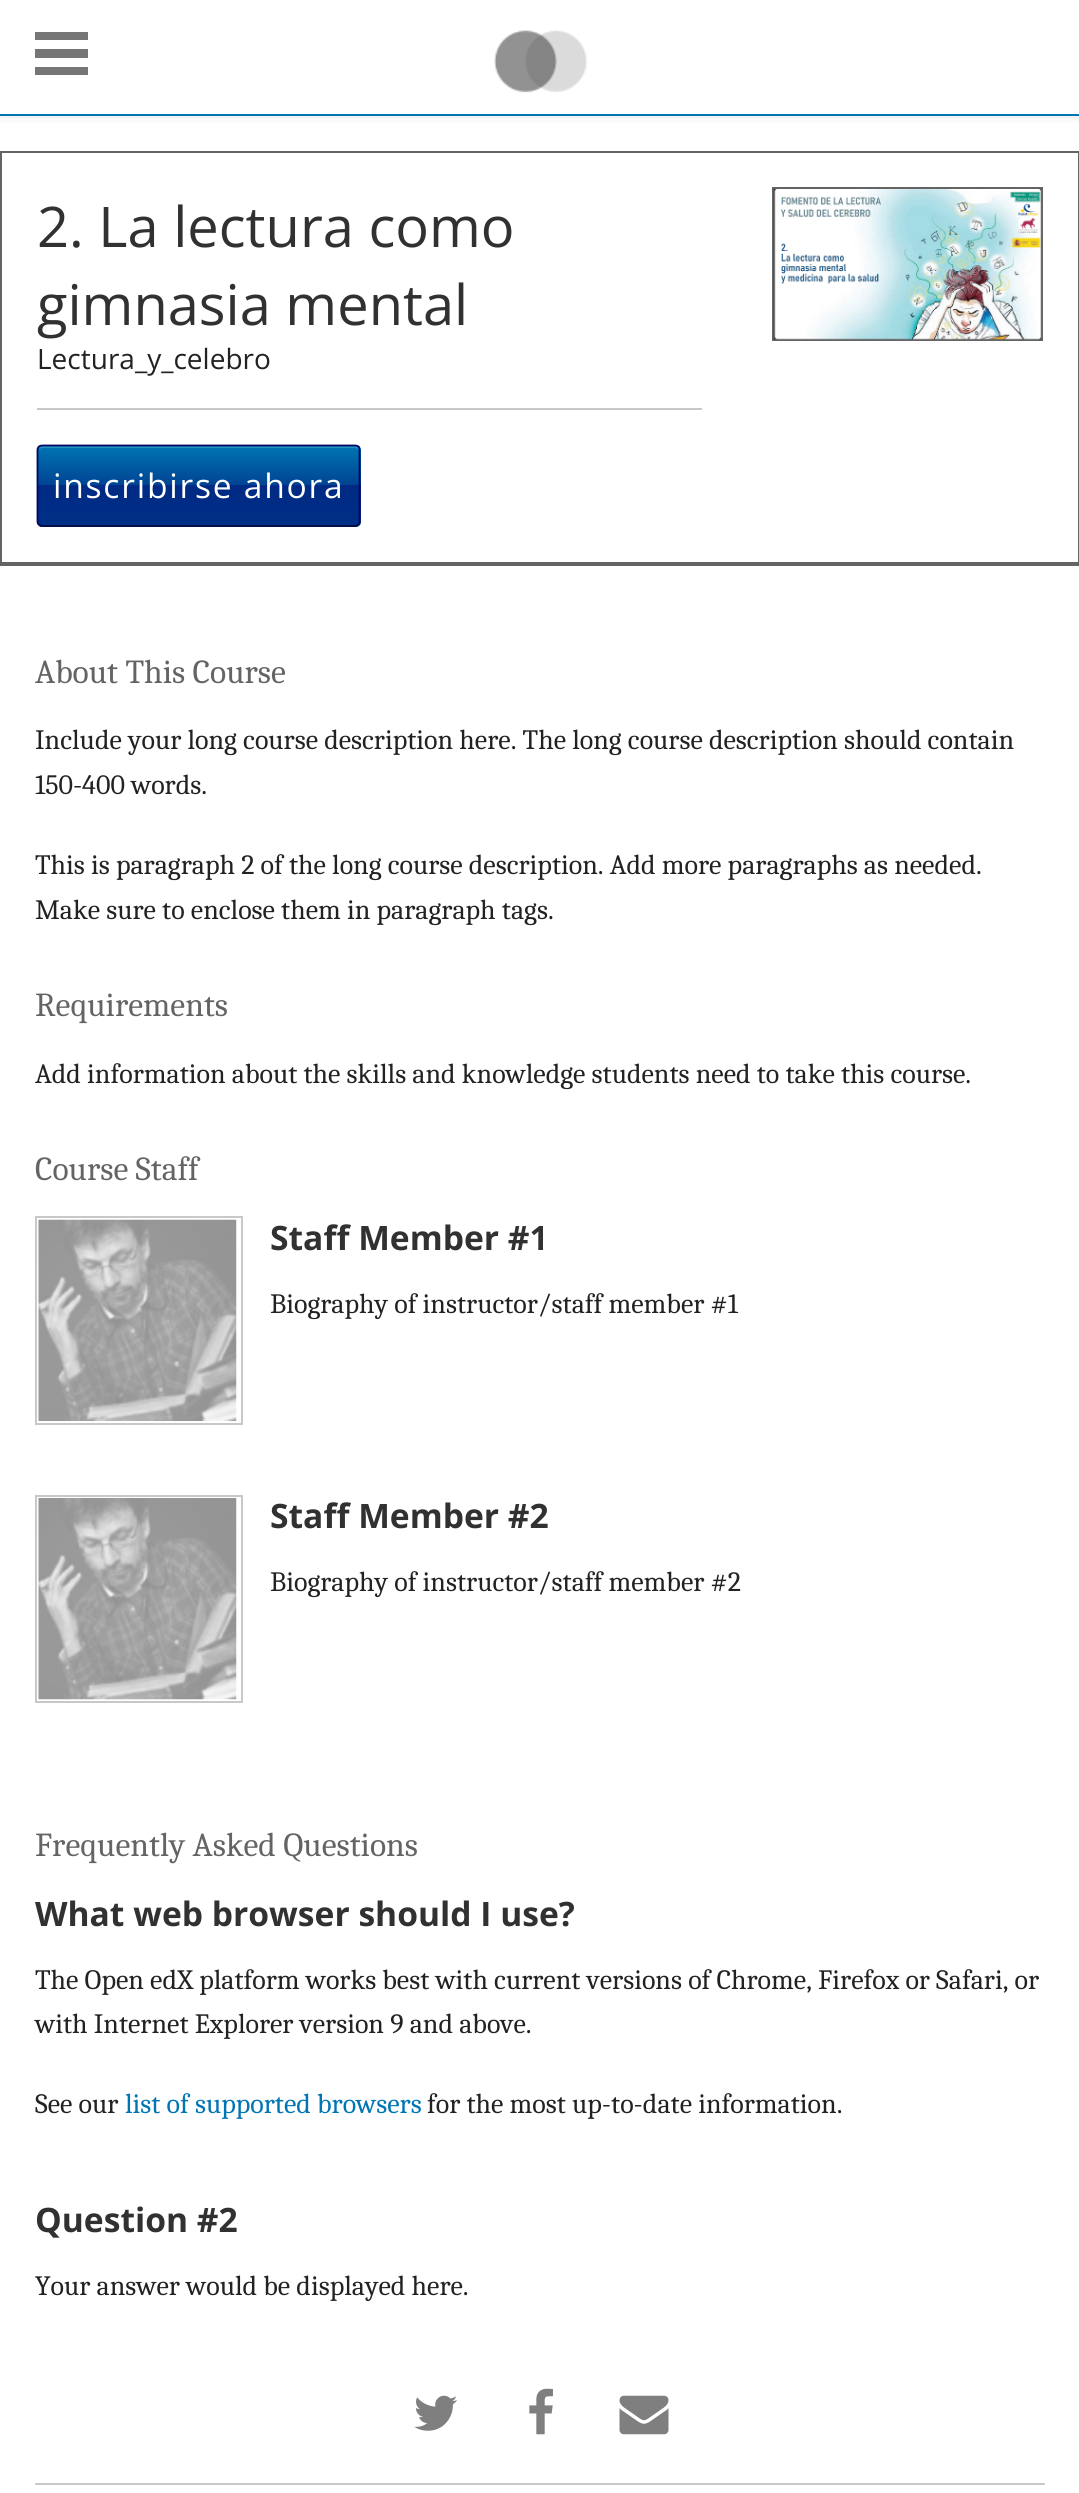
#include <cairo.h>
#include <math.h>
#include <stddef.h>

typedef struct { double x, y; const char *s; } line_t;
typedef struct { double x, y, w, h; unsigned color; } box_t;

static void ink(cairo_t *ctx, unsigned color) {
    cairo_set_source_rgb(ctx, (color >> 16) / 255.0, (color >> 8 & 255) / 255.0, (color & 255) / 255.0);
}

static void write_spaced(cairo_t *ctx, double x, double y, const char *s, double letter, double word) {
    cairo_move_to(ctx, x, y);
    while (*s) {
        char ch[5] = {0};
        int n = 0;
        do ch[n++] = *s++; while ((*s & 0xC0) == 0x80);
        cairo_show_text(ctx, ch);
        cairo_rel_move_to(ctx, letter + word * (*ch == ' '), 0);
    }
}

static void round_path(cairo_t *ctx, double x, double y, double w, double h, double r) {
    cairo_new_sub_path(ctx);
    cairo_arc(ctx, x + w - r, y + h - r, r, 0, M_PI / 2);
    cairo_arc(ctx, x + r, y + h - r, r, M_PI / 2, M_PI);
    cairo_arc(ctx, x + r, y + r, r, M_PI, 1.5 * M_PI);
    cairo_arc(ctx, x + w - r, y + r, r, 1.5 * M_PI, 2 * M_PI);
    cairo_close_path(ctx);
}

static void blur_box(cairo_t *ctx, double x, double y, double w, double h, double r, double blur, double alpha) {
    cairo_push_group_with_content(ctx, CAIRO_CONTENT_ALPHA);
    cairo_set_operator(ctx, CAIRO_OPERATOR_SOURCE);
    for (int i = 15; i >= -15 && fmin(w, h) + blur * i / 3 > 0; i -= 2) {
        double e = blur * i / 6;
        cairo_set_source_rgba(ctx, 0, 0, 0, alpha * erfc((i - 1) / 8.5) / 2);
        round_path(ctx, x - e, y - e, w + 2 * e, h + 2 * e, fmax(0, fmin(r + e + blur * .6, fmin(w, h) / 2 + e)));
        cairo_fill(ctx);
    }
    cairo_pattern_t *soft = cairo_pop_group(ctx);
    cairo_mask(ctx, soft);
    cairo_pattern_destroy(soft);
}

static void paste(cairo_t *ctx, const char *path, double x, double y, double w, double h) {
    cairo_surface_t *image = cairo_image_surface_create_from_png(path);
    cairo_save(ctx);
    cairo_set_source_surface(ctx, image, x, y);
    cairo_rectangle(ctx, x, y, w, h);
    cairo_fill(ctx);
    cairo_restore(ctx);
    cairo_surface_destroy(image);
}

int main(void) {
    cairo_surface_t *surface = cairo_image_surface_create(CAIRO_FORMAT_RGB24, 1079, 2493);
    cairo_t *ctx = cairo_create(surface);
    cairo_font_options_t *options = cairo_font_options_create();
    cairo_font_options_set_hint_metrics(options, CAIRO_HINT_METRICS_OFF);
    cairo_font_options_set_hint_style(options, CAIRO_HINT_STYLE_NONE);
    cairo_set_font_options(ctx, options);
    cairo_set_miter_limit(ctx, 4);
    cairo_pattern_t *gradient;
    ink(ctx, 0xFFFFFF);
    cairo_paint(ctx);
    ink(ctx, 0x000000);
    blur_box(ctx, 0, 2, 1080, 115, 0, 4.5, 0.1);
    {
        static const box_t items[] = {
            {0, 0, 1079, 114, 0xFFFFFF},
            {0, 114, 1079, 2, 0x0075B4},
            {35, 32, 53, 8, 0x767676},
            {35, 49, 53, 9, 0x767676},
            {35, 67, 53, 8, 0x767676},
        };
        for (size_t i = 0; i < sizeof items / sizeof *items; i++) {
            ink(ctx, items[i].color);
            cairo_rectangle(ctx, items[i].x, items[i].y, items[i].w, items[i].h);
            cairo_fill(ctx);
        }
    }
    paste(ctx, "media/1.png", 494, 30, 94, 63);
    ink(ctx, 0x646464);
    cairo_rectangle(ctx, 0, 564, 1079, 2);
    cairo_fill(ctx);
    cairo_rectangle(ctx, 1, 152, 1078, 411);
    cairo_stroke(ctx);
    ink(ctx, 0xC8C8C8);
    cairo_rectangle(ctx, 37, 408, 665, 2);
    cairo_fill(ctx);
    cairo_select_font_face(ctx, "Open Sans", CAIRO_FONT_SLANT_NORMAL, CAIRO_FONT_WEIGHT_NORMAL);
    cairo_set_font_size(ctx, 56);
    ink(ctx, 0x313131);
    cairo_move_to(ctx, 37, 247);
    cairo_show_text(ctx, "2. La lectura como");
    cairo_move_to(ctx, 37, 325);
    cairo_show_text(ctx, "gimnasia mental");
    cairo_set_font_size(ctx, 28);
    ink(ctx, 0x222222);
    cairo_move_to(ctx, 37, 369);
    cairo_show_text(ctx, "Lectura_y_celebro");
    cairo_save(ctx);
    round_path(ctx, 37, 445, 324, 82, 5);
    cairo_clip(ctx);
    gradient = cairo_pattern_create_linear(199, 446, 199, 525);
    cairo_pattern_add_color_stop_rgba(gradient, 0, 0, 0.459, 0.706, 1);
    cairo_pattern_add_color_stop_rgba(gradient, 0.5, 0, 0.263, 0.576, 1);
    cairo_pattern_add_color_stop_rgba(gradient, 0.5, 0, 0.165, 0.518, 1);
    cairo_pattern_add_color_stop_rgba(gradient, 1, 0, 0.184, 0.525, 1);
    cairo_set_source(ctx, gradient);
    cairo_pattern_destroy(gradient);
    cairo_rectangle(ctx, 37, 446, 324, 79);
    cairo_fill(ctx);
    gradient = cairo_pattern_create_linear(199, 525, 199, 604);
    cairo_pattern_add_color_stop_rgba(gradient, 0, 0, 0.459, 0.706, 1);
    cairo_pattern_add_color_stop_rgba(gradient, 0.5, 0, 0.263, 0.576, 1);
    cairo_pattern_add_color_stop_rgba(gradient, 0.5, 0, 0.165, 0.518, 1);
    cairo_pattern_add_color_stop_rgba(gradient, 1, 0, 0.184, 0.525, 1);
    cairo_set_source(ctx, gradient);
    cairo_pattern_destroy(gradient);
    cairo_rectangle(ctx, 37, 525, 324, 2);
    cairo_fill(ctx);
    cairo_restore(ctx);
    ink(ctx, 0x2592C0);
    cairo_new_path(ctx);
    cairo_move_to(ctx, 42, 448);
    cairo_line_to(ctx, 355, 448);
    cairo_curve_to(ctx, 357, 448, 359, 450, 359, 452);
    cairo_curve_to(ctx, 359, 449, 359, 446, 355, 446);
    cairo_line_to(ctx, 43, 446);
    cairo_line_to(ctx, 40, 447);
    cairo_line_to(ctx, 39, 449);
    cairo_close_path(ctx);
    cairo_fill(ctx);
    cairo_new_path(ctx);
    cairo_move_to(ctx, 358.5, 524.5);
    cairo_curve_to(ctx, 357.5, 525.5, 356.5, 526, 355, 526);
    cairo_line_to(ctx, 42, 526);
    cairo_curve_to(ctx, 41, 526, 39.5, 525.5, 39, 524.5);
    ink(ctx, 0x00003A);
    cairo_set_line_width(ctx, 1.8);
    cairo_stroke(ctx);
    cairo_new_path(ctx);
    cairo_move_to(ctx, 39, 524.5);
    cairo_curve_to(ctx, 38, 524, 37.5, 522.5, 37.5, 521.5);
    cairo_line_to(ctx, 37.5, 450);
    cairo_curve_to(ctx, 37.5, 448.5, 38, 447.5, 39, 446.5);
    cairo_curve_to(ctx, 39.5, 446, 41, 445.5, 42, 445.5);
    cairo_line_to(ctx, 355, 445.5);
    cairo_curve_to(ctx, 356.5, 445.5, 357.5, 446, 358.5, 446.5);
    cairo_curve_to(ctx, 359, 447.5, 359.5, 448.5, 359.5, 450);
    cairo_line_to(ctx, 359.5, 521.5);
    cairo_curve_to(ctx, 359.5, 522.5, 359, 524, 358.5, 524.5);
    ink(ctx, 0x000663);
    cairo_stroke(ctx);
    cairo_set_font_size(ctx, 33.6);
    ink(ctx, 0xFFFFFF);
    write_spaced(ctx, 53, 498, "inscribirse ahora", 1.75, 0);
    cairo_rectangle(ctx, 773, 188, 269, 152);
    ink(ctx, 0x646464);
    cairo_set_line_width(ctx, 2);
    cairo_stroke(ctx);
    paste(ctx, "media/2.png", 773, 189, 269, 151);
    cairo_select_font_face(ctx, "Caladea", CAIRO_FONT_SLANT_NORMAL, CAIRO_FONT_WEIGHT_NORMAL);
    cairo_move_to(ctx, 35, 683);
    cairo_show_text(ctx, "About This Course");
    cairo_set_font_size(ctx, 28);
    ink(ctx, 0x222222);
    {
        static const line_t items[] = {
            {35, 749, "Include your long course description here. The long course description should contain"},
            {35, 794, "150-400 words."},
            {35, 874, "This is paragraph 2 of the long course description. Add more paragraphs as needed."},
            {35, 919, "Make sure to enclose them in paragraph tags."},
        };
        for (size_t i = 0; i < sizeof items / sizeof *items; i++) {
            cairo_move_to(ctx, items[i].x, items[i].y);
            cairo_show_text(ctx, items[i].s);
        }
    }
    cairo_set_font_size(ctx, 33.6);
    ink(ctx, 0x646464);
    cairo_move_to(ctx, 35, 1016);
    cairo_show_text(ctx, "Requirements");
    cairo_set_font_size(ctx, 28);
    ink(ctx, 0x222222);
    cairo_move_to(ctx, 35, 1083);
    cairo_show_text(ctx, "Add information about the skills and knowledge students need to take this course.");
    cairo_set_font_size(ctx, 33.6);
    ink(ctx, 0x646464);
    cairo_move_to(ctx, 35, 1180);
    cairo_show_text(ctx, "Course Staff");
    cairo_rectangle(ctx, 36, 1217, 206, 207);
    ink(ctx, 0xC8C8C8);
    cairo_stroke(ctx);
    paste(ctx, "media/3.png", 38, 1219, 199, 202);
    cairo_select_font_face(ctx, "Open Sans", CAIRO_FONT_SLANT_NORMAL, CAIRO_FONT_WEIGHT_BOLD);
    ink(ctx, 0x313131);
    cairo_move_to(ctx, 270, 1250);
    cairo_show_text(ctx, "Staff Member #1");
    cairo_select_font_face(ctx, "Caladea", CAIRO_FONT_SLANT_NORMAL, CAIRO_FONT_WEIGHT_NORMAL);
    cairo_set_font_size(ctx, 28);
    ink(ctx, 0x222222);
    cairo_move_to(ctx, 270, 1313);
    cairo_show_text(ctx, "Biography of instructor/staff member #1");
    cairo_rectangle(ctx, 36, 1496, 206, 206);
    ink(ctx, 0xC8C8C8);
    cairo_stroke(ctx);
    paste(ctx, "media/4.png", 38, 1498, 199, 202);
    cairo_select_font_face(ctx, "Open Sans", CAIRO_FONT_SLANT_NORMAL, CAIRO_FONT_WEIGHT_BOLD);
    cairo_set_font_size(ctx, 33.6);
    ink(ctx, 0x313131);
    cairo_move_to(ctx, 270, 1528);
    cairo_show_text(ctx, "Staff Member #2");
    cairo_select_font_face(ctx, "Caladea", CAIRO_FONT_SLANT_NORMAL, CAIRO_FONT_WEIGHT_NORMAL);
    cairo_set_font_size(ctx, 28);
    ink(ctx, 0x222222);
    cairo_move_to(ctx, 270, 1591);
    cairo_show_text(ctx, "Biography of instructor/staff member #2");
    cairo_set_font_size(ctx, 33.6);
    ink(ctx, 0x646464);
    cairo_move_to(ctx, 35, 1856);
    cairo_show_text(ctx, "Frequently Asked Questions");
    cairo_select_font_face(ctx, "Open Sans", CAIRO_FONT_SLANT_NORMAL, CAIRO_FONT_WEIGHT_BOLD);
    ink(ctx, 0x313131);
    cairo_move_to(ctx, 35, 1926);
    cairo_show_text(ctx, "What web browser should I use?");
    cairo_select_font_face(ctx, "Caladea", CAIRO_FONT_SLANT_NORMAL, CAIRO_FONT_WEIGHT_NORMAL);
    cairo_set_font_size(ctx, 28);
    ink(ctx, 0x222222);
    {
        static const line_t items[] = {
            {35, 1989, "The Open edX platform works best with current versions of Chrome, Firefox or Safari, or"},
            {35, 2033, "with Internet Explorer version 9 and above."},
            {35, 2113, "See our"},
        };
        for (size_t i = 0; i < sizeof items / sizeof *items; i++) {
            cairo_move_to(ctx, items[i].x, items[i].y);
            cairo_show_text(ctx, items[i].s);
        }
    }
    ink(ctx, 0x0075B4);
    cairo_move_to(ctx, 125, 2113);
    cairo_show_text(ctx, "list of supported browsers");
    ink(ctx, 0x222222);
    cairo_move_to(ctx, 427, 2113);
    cairo_show_text(ctx, "for the most up-to-date information.");
    cairo_select_font_face(ctx, "Open Sans", CAIRO_FONT_SLANT_NORMAL, CAIRO_FONT_WEIGHT_BOLD);
    cairo_set_font_size(ctx, 33.6);
    ink(ctx, 0x313131);
    cairo_move_to(ctx, 35, 2232);
    cairo_show_text(ctx, "Question #2");
    cairo_select_font_face(ctx, "Caladea", CAIRO_FONT_SLANT_NORMAL, CAIRO_FONT_WEIGHT_NORMAL);
    cairo_set_font_size(ctx, 28);
    ink(ctx, 0x222222);
    cairo_move_to(ctx, 35, 2295);
    cairo_show_text(ctx, "Your answer would be displayed here.");
    paste(ctx, "media/5.png", 414, 2395, 43, 36);
    paste(ctx, "media/6.png", 529, 2388, 24, 47);
    paste(ctx, "media/7.png", 619, 2395, 50, 40);
    ink(ctx, 0xC8C8C8);
    round_path(ctx, 35, 2483, 1010, 2, 1);
    cairo_fill(ctx);
    cairo_surface_write_to_png(surface, "image.png");
    cairo_font_options_destroy(options);
    cairo_destroy(ctx);
    cairo_surface_destroy(surface);
    return 0;
}
